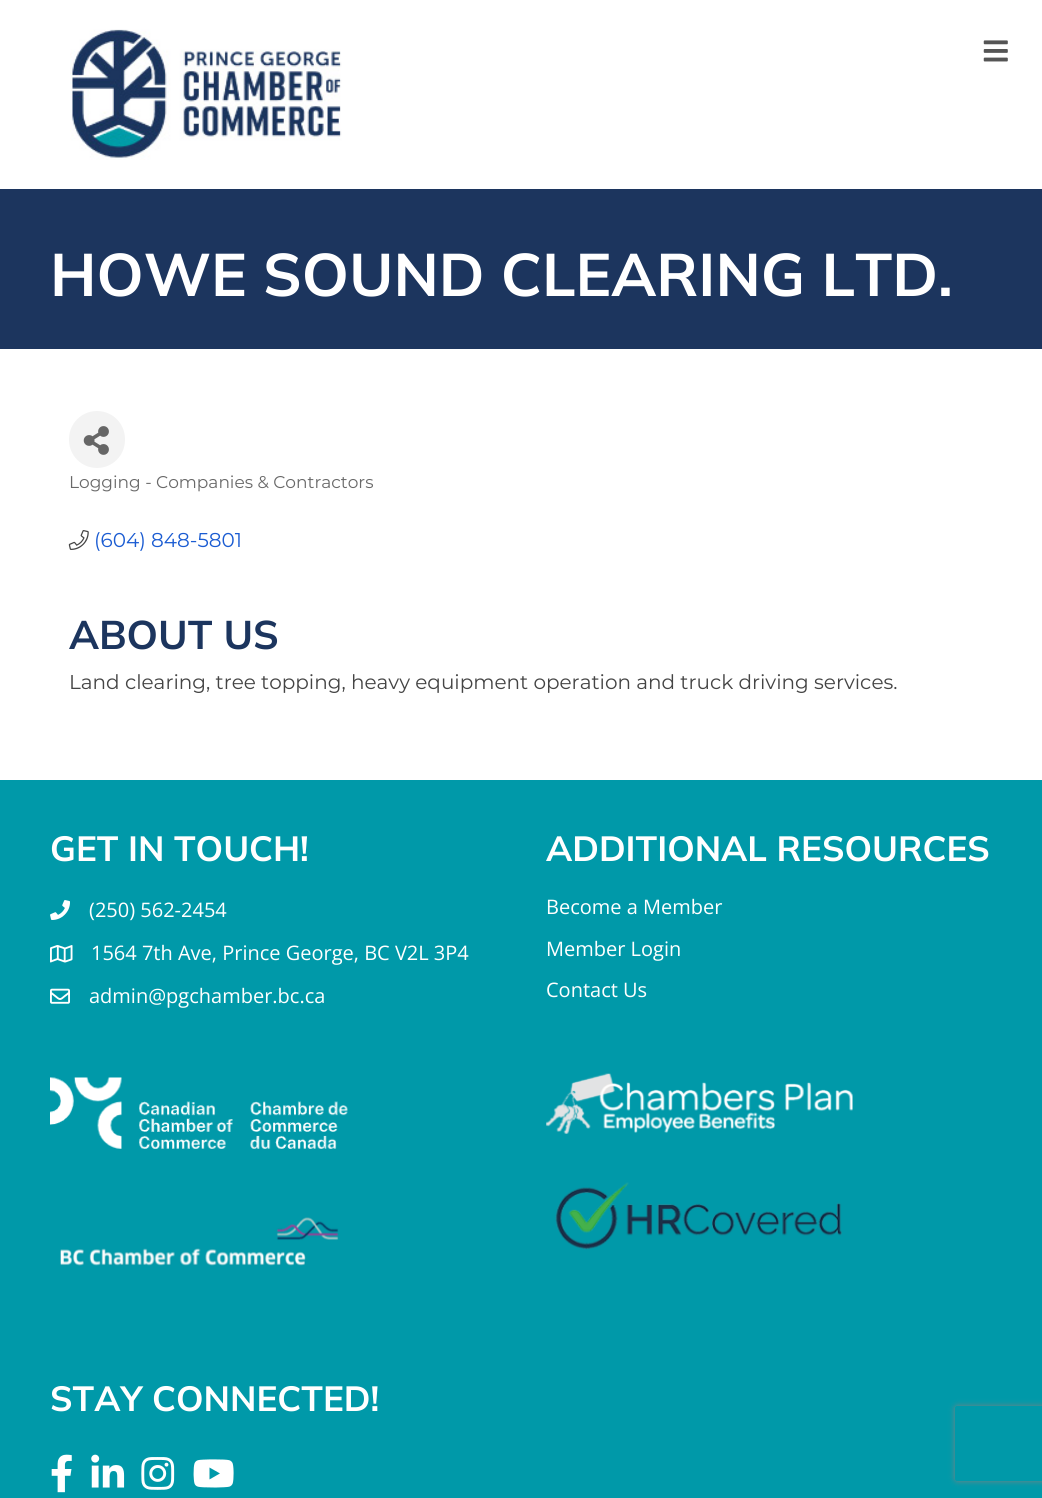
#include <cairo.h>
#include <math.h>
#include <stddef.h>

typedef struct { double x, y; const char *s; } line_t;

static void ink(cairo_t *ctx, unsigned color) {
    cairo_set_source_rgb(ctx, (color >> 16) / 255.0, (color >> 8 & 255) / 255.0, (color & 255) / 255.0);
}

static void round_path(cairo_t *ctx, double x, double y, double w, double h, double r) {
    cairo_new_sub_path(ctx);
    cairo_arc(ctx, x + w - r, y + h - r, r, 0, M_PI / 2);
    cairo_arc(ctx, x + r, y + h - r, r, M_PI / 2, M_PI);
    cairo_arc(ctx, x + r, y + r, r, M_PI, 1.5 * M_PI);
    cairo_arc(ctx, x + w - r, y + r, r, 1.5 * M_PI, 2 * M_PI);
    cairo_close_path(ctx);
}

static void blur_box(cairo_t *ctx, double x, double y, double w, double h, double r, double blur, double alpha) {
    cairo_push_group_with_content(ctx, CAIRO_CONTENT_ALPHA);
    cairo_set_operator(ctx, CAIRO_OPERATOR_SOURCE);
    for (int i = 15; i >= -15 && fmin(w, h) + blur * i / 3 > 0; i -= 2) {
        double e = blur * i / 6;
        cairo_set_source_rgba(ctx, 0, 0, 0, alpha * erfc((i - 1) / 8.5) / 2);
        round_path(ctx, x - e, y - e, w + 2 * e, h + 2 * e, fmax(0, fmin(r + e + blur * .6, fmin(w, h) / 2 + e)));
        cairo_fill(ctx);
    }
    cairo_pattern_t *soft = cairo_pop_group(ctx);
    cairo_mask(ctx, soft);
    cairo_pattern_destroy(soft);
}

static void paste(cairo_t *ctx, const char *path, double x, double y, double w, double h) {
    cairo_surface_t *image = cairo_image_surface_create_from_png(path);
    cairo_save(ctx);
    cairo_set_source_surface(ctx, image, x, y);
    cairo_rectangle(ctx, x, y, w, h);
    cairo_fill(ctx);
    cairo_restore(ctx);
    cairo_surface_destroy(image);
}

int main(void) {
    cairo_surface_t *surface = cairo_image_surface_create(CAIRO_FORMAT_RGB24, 1042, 1498);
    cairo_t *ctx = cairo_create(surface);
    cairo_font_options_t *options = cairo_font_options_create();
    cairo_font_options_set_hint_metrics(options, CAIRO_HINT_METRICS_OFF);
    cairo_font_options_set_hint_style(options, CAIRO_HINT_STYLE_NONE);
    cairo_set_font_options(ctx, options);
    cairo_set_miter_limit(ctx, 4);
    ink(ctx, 0xFFFFFF);
    cairo_paint(ctx);
    paste(ctx, "media/1.png", 70, 29, 272, 131);
    paste(ctx, "media/2.png", 983, 40, 25, 22);
    ink(ctx, 0x1C355E);
    cairo_rectangle(ctx, 0, 189, 1042, 160);
    cairo_fill(ctx);
    cairo_select_font_face(ctx, "Mulish", CAIRO_FONT_SLANT_NORMAL, CAIRO_FONT_WEIGHT_BOLD);
    cairo_set_font_size(ctx, 60);
    ink(ctx, 0xFFFFFF);
    cairo_move_to(ctx, 50, 296);
    cairo_show_text(ctx, "HOWE SOUND CLEARING LTD.");
    ink(ctx, 0xF3F3F3);
    round_path(ctx, 69, 411, 56, 57, 28);
    cairo_fill(ctx);
    paste(ctx, "media/3.png", 83, 426, 26, 29);
    cairo_select_font_face(ctx, "Montserrat", CAIRO_FONT_SLANT_NORMAL, CAIRO_FONT_WEIGHT_NORMAL);
    cairo_set_font_size(ctx, 17);
    ink(ctx, 0x696969);
    cairo_move_to(ctx, 69, 488);
    cairo_show_text(ctx, "Logging - Companies & Contractors");
    paste(ctx, "media/4.png", 68, 530, 21, 20);
    cairo_set_font_size(ctx, 20);
    ink(ctx, 0x1B5CD2);
    cairo_move_to(ctx, 94, 547);
    cairo_show_text(ctx, "(604) 848-5801");
    cairo_select_font_face(ctx, "Mulish", CAIRO_FONT_SLANT_NORMAL, CAIRO_FONT_WEIGHT_BOLD);
    cairo_set_font_size(ctx, 40);
    ink(ctx, 0x1C355E);
    cairo_move_to(ctx, 69, 649);
    cairo_show_text(ctx, "ABOUT US");
    cairo_select_font_face(ctx, "Montserrat", CAIRO_FONT_SLANT_NORMAL, CAIRO_FONT_WEIGHT_NORMAL);
    cairo_set_font_size(ctx, 20);
    ink(ctx, 0x444444);
    cairo_move_to(ctx, 69, 689);
    cairo_show_text(ctx, "Land clearing, tree topping, heavy equipment operation and truck driving services.");
    ink(ctx, 0x0099A9);
    cairo_rectangle(ctx, 0, 780, 1042, 718);
    cairo_fill(ctx);
    cairo_select_font_face(ctx, "Mulish", CAIRO_FONT_SLANT_NORMAL, CAIRO_FONT_WEIGHT_BOLD);
    cairo_set_font_size(ctx, 35);
    ink(ctx, 0xFFFFFF);
    cairo_move_to(ctx, 50, 861);
    cairo_show_text(ctx, "GET IN TOUCH!");
    paste(ctx, "media/5.png", 50, 900, 20, 20);
    cairo_select_font_face(ctx, "Open Sans", CAIRO_FONT_SLANT_NORMAL, CAIRO_FONT_WEIGHT_NORMAL);
    cairo_set_font_size(ctx, 20);
    cairo_move_to(ctx, 89, 917);
    cairo_show_text(ctx, "(250) 562-2454");
    paste(ctx, "media/6.png", 50, 945, 23, 18);
    cairo_move_to(ctx, 91, 960);
    cairo_show_text(ctx, "1564 7th Ave, Prince George, BC V2L 3P4");
    paste(ctx, "media/7.png", 50, 988, 20, 16);
    cairo_move_to(ctx, 89, 1003);
    cairo_show_text(ctx, "admin@pgchamber.bc.ca");
    paste(ctx, "media/8.png", 50, 1077, 298, 72);
    paste(ctx, "media/9.png", 60, 1217, 279, 49);
    cairo_select_font_face(ctx, "Mulish", CAIRO_FONT_SLANT_NORMAL, CAIRO_FONT_WEIGHT_BOLD);
    cairo_set_font_size(ctx, 35);
    cairo_move_to(ctx, 546, 861);
    cairo_show_text(ctx, "ADDITIONAL RESOURCES");
    cairo_select_font_face(ctx, "Open Sans", CAIRO_FONT_SLANT_NORMAL, CAIRO_FONT_WEIGHT_NORMAL);
    cairo_set_font_size(ctx, 20);
    {
        static const line_t items[] = {
            {546, 914, "Become a Member"},
            {546, 956, "Member Login"},
            {546, 997, "Contact Us"},
        };
        for (size_t i = 0; i < sizeof items / sizeof *items; i++) {
            cairo_move_to(ctx, items[i].x, items[i].y);
            cairo_show_text(ctx, items[i].s);
        }
    }
    paste(ctx, "media/10.png", 546, 1073, 307, 61);
    paste(ctx, "media/11.png", 555, 1182, 287, 68);
    cairo_select_font_face(ctx, "Mulish", CAIRO_FONT_SLANT_NORMAL, CAIRO_FONT_WEIGHT_BOLD);
    cairo_set_font_size(ctx, 35);
    cairo_move_to(ctx, 50, 1411);
    cairo_show_text(ctx, "STAY CONNECTED!");
    paste(ctx, "media/12.png", 51, 1454, 21, 39);
    paste(ctx, "media/13.png", 91, 1454, 34, 34);
    paste(ctx, "media/14.png", 141, 1457, 34, 33);
    paste(ctx, "media/15.png", 193, 1459, 41, 29);
    cairo_save(ctx);
    cairo_set_fill_rule(ctx, CAIRO_FILL_RULE_EVEN_ODD);
    cairo_new_path(ctx);
    cairo_move_to(ctx, 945, 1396);
    cairo_line_to(ctx, 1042, 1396);
    cairo_line_to(ctx, 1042, 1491);
    cairo_line_to(ctx, 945, 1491);
    cairo_close_path(ctx);
    cairo_move_to(ctx, 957.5, 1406);
    cairo_line_to(ctx, 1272.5, 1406);
    cairo_curve_to(ctx, 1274, 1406, 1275, 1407, 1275, 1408.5);
    cairo_line_to(ctx, 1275, 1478.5);
    cairo_curve_to(ctx, 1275, 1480, 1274, 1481, 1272.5, 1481);
    cairo_line_to(ctx, 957.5, 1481);
    cairo_curve_to(ctx, 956, 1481, 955, 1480, 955, 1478.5);
    cairo_line_to(ctx, 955, 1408.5);
    cairo_curve_to(ctx, 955, 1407, 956, 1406, 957.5, 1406);
    cairo_close_path(ctx);
    cairo_clip(ctx);
    ink(ctx, 0x808080);
    blur_box(ctx, 955, 1406, 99, 75, 2.5, 3, 1);
    cairo_restore(ctx);
    cairo_surface_write_to_png(surface, "image.png");
    cairo_font_options_destroy(options);
    cairo_destroy(ctx);
    cairo_surface_destroy(surface);
    return 0;
}
